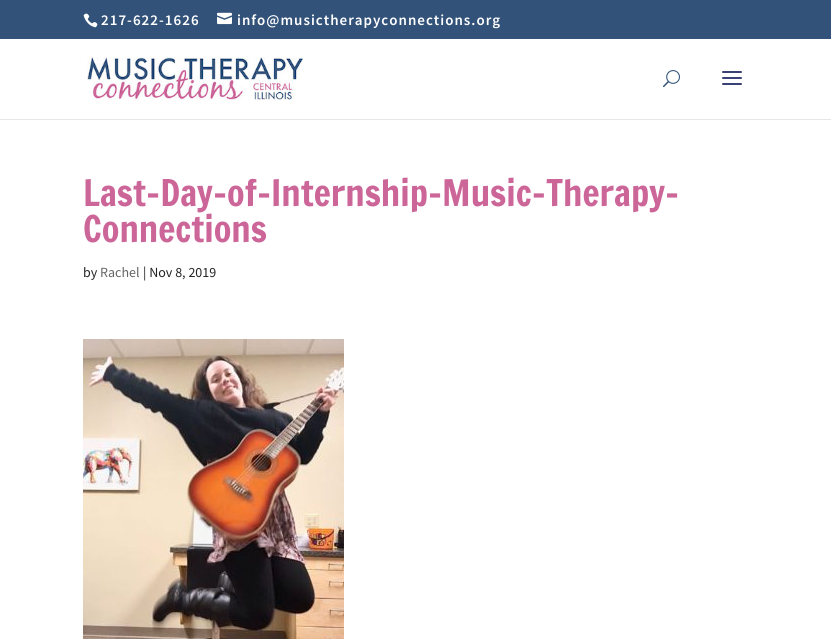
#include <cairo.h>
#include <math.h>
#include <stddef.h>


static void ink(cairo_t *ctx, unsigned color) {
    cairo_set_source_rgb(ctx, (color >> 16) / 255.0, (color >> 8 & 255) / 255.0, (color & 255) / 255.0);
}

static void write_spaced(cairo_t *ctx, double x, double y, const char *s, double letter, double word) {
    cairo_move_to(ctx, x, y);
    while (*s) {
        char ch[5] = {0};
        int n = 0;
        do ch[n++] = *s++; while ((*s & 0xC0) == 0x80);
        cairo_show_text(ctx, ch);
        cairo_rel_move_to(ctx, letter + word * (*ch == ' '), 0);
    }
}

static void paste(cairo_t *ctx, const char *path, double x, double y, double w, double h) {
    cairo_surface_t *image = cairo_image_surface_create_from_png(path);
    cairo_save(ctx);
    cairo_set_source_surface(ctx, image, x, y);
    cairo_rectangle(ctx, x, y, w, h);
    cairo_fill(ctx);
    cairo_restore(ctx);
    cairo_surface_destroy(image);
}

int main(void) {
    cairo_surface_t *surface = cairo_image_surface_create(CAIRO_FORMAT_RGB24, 831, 639);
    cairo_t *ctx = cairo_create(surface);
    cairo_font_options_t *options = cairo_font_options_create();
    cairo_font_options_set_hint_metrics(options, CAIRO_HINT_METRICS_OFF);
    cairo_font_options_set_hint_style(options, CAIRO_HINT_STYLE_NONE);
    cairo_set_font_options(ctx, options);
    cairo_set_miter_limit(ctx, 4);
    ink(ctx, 0xFFFFFF);
    cairo_paint(ctx);
    ink(ctx, 0x325279);
    cairo_rectangle(ctx, 0, 0, 831, 39);
    cairo_fill(ctx);
    paste(ctx, "media/1.png", 83, 13, 15, 15);
    cairo_select_font_face(ctx, "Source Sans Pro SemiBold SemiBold", CAIRO_FONT_SLANT_NORMAL, CAIRO_FONT_WEIGHT_NORMAL);
    cairo_set_font_size(ctx, 15);
    ink(ctx, 0xFFFFFF);
    write_spaced(ctx, 101, 25, "217-622-1626", 1, 0);
    paste(ctx, "media/2.png", 217, 12, 15, 13);
    write_spaced(ctx, 237, 25, "info@musictherapyconnections.org", 1, 0);
    ink(ctx, 0xE6E6E6);
    cairo_rectangle(ctx, 0, 119, 831, 1);
    cairo_fill(ctx);
    paste(ctx, "media/3.png", 87, 57, 216, 43);
    paste(ctx, "media/4.png", 663, 70, 17, 18);
    paste(ctx, "media/5.png", 722, 71, 20, 14);
    cairo_select_font_face(ctx, "Francois One", CAIRO_FONT_SLANT_NORMAL, CAIRO_FONT_WEIGHT_NORMAL);
    cairo_set_font_size(ctx, 36);
    ink(ctx, 0xCC6699);
    cairo_move_to(ctx, 83, 206);
    cairo_show_text(ctx, "Last-Day-of-Internship-Music-Therapy-");
    cairo_move_to(ctx, 83, 242);
    cairo_show_text(ctx, "Connections");
    cairo_select_font_face(ctx, "Source Sans Pro", CAIRO_FONT_SLANT_NORMAL, CAIRO_FONT_WEIGHT_NORMAL);
    cairo_set_font_size(ctx, 14);
    ink(ctx, 0x232323);
    cairo_move_to(ctx, 83, 277);
    cairo_show_text(ctx, "by");
    ink(ctx, 0x666666);
    cairo_move_to(ctx, 100, 277);
    cairo_show_text(ctx, "Rachel");
    ink(ctx, 0x232323);
    cairo_move_to(ctx, 143, 277);
    cairo_show_text(ctx, "| Nov 8, 2019");
    paste(ctx, "media/6.png", 83, 339, 261, 300);
    cairo_surface_write_to_png(surface, "image.png");
    cairo_font_options_destroy(options);
    cairo_destroy(ctx);
    cairo_surface_destroy(surface);
    return 0;
}
